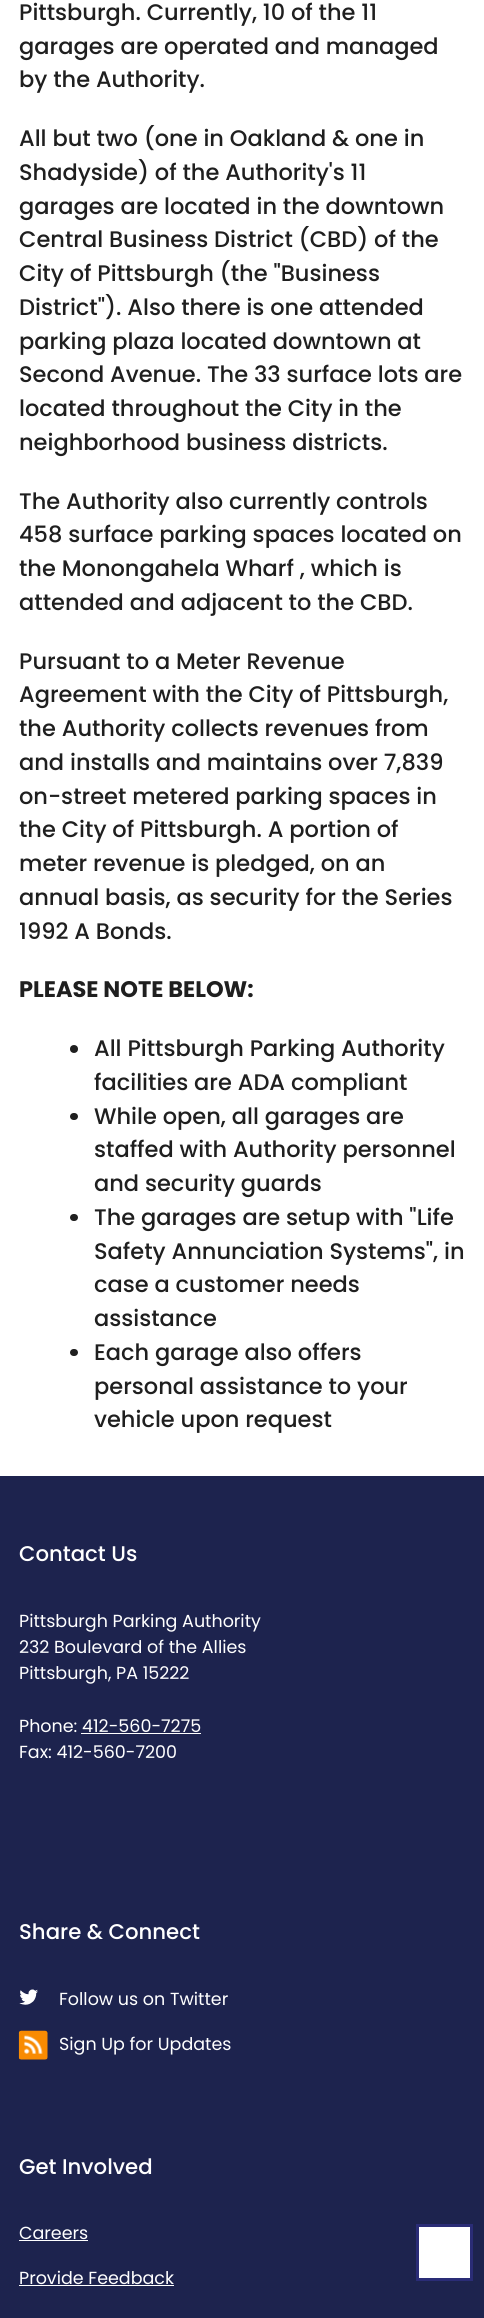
#include <cairo.h>
#include <math.h>
#include <stddef.h>

typedef struct { double x, y; const char *s; } line_t;

static void ink(cairo_t *ctx, unsigned color) {
    cairo_set_source_rgb(ctx, (color >> 16) / 255.0, (color >> 8 & 255) / 255.0, (color & 255) / 255.0);
}

static void round_path(cairo_t *ctx, double x, double y, double w, double h, double r) {
    cairo_new_sub_path(ctx);
    cairo_arc(ctx, x + w - r, y + h - r, r, 0, M_PI / 2);
    cairo_arc(ctx, x + r, y + h - r, r, M_PI / 2, M_PI);
    cairo_arc(ctx, x + r, y + r, r, M_PI, 1.5 * M_PI);
    cairo_arc(ctx, x + w - r, y + r, r, 1.5 * M_PI, 2 * M_PI);
    cairo_close_path(ctx);
}

static void paste(cairo_t *ctx, const char *path, double x, double y, double w, double h) {
    cairo_surface_t *image = cairo_image_surface_create_from_png(path);
    cairo_save(ctx);
    cairo_set_source_surface(ctx, image, x, y);
    cairo_rectangle(ctx, x, y, w, h);
    cairo_fill(ctx);
    cairo_restore(ctx);
    cairo_surface_destroy(image);
}

int main(void) {
    cairo_surface_t *surface = cairo_image_surface_create(CAIRO_FORMAT_RGB24, 484, 2318);
    cairo_t *ctx = cairo_create(surface);
    cairo_font_options_t *options = cairo_font_options_create();
    cairo_font_options_set_hint_metrics(options, CAIRO_HINT_METRICS_OFF);
    cairo_font_options_set_hint_style(options, CAIRO_HINT_STYLE_NONE);
    cairo_set_font_options(ctx, options);
    cairo_set_miter_limit(ctx, 4);
    ink(ctx, 0xFFFFFF);
    cairo_paint(ctx);
    cairo_select_font_face(ctx, "Poppins Medium", CAIRO_FONT_SLANT_NORMAL, CAIRO_FONT_WEIGHT_NORMAL);
    cairo_set_font_size(ctx, 22.5);
    ink(ctx, 0x1F1F1F);
    {
        static const line_t items[] = {
            {19, 20, "Pittsburgh. Currently, 10 of the 11"},
            {19, 54, "garages are operated and managed"},
            {19, 87, "by the Authority."},
            {19, 146, "All but two (one in Oakland & one in"},
            {19, 180, "Shadyside) of the Authority's 11"},
            {19, 214, "garages are located in the downtown"},
            {19, 247, "Central Business District (CBD) of the"},
            {19, 281, "City of Pittsburgh (the \"Business"},
            {19, 315, "District\"). Also there is one attended"},
            {19, 349, "parking plaza located downtown at"},
            {19, 382, "Second Avenue. The 33 surface lots are"},
            {19, 416, "located throughout the City in the"},
            {19, 450, "neighborhood business districts."},
            {19, 509, "The Authority also currently controls"},
            {19, 542, "458 surface parking spaces located on"},
            {19, 576, "the Monongahela Wharf , which is"},
            {19, 610, "attended and adjacent to the CBD."},
            {19, 669, "Pursuant to a Meter Revenue"},
            {19, 702, "Agreement with the City of Pittsburgh,"},
            {19, 736, "the Authority collects revenues from"},
            {19, 770, "and installs and maintains over 7,839"},
            {19, 804, "on-street metered parking spaces in"},
            {19, 837, "the City of Pittsburgh. A portion of"},
            {19, 871, "meter revenue is pledged, on an"},
            {19, 905, "annual basis, as security for the Series"},
            {19, 939, "1992 A Bonds."},
        };
        for (size_t i = 0; i < sizeof items / sizeof *items; i++) {
            cairo_move_to(ctx, items[i].x, items[i].y);
            cairo_show_text(ctx, items[i].s);
        }
    }
    cairo_select_font_face(ctx, "Poppins", CAIRO_FONT_SLANT_NORMAL, CAIRO_FONT_WEIGHT_BOLD);
    cairo_move_to(ctx, 19, 997);
    cairo_show_text(ctx, "PLEASE NOTE BELOW:");
    cairo_new_path(ctx);
    cairo_arc(ctx, 74, 1049, 4, 0, 2 * M_PI);
    cairo_fill(ctx);
    cairo_select_font_face(ctx, "Poppins Medium", CAIRO_FONT_SLANT_NORMAL, CAIRO_FONT_WEIGHT_NORMAL);
    cairo_move_to(ctx, 94, 1056);
    cairo_show_text(ctx, "All Pittsburgh Parking Authority");
    cairo_move_to(ctx, 94, 1090);
    cairo_show_text(ctx, "facilities are ADA compliant");
    round_path(ctx, 70, 1113, 8, 7, 3.5);
    cairo_fill(ctx);
    {
        static const line_t items[] = {
            {94, 1124, "While open, all garages are"},
            {94, 1157, "staffed with Authority personnel"},
            {94, 1191, "and security guards"},
        };
        for (size_t i = 0; i < sizeof items / sizeof *items; i++) {
            cairo_move_to(ctx, items[i].x, items[i].y);
            cairo_show_text(ctx, items[i].s);
        }
    }
    round_path(ctx, 70, 1214, 8, 7, 3.5);
    cairo_fill(ctx);
    {
        static const line_t items[] = {
            {94, 1225, "The garages are setup with \"Life"},
            {94, 1259, "Safety Annunciation Systems\", in"},
            {94, 1292, "case a customer needs"},
            {94, 1326, "assistance"},
        };
        for (size_t i = 0; i < sizeof items / sizeof *items; i++) {
            cairo_move_to(ctx, items[i].x, items[i].y);
            cairo_show_text(ctx, items[i].s);
        }
    }
    round_path(ctx, 70, 1349, 8, 7, 3.5);
    cairo_fill(ctx);
    {
        static const line_t items[] = {
            {94, 1360, "Each garage also offers"},
            {94, 1394, "personal assistance to your"},
            {94, 1427, "vehicle upon request"},
        };
        for (size_t i = 0; i < sizeof items / sizeof *items; i++) {
            cairo_move_to(ctx, items[i].x, items[i].y);
            cairo_show_text(ctx, items[i].s);
        }
    }
    ink(ctx, 0x1D234E);
    cairo_rectangle(ctx, 0, 1476, 484, 842);
    cairo_fill(ctx);
    ink(ctx, 0xFFFFFF);
    cairo_rectangle(ctx, 417.5, 2225.5, 54, 54);
    cairo_fill_preserve(ctx);
    ink(ctx, 0x2A2C76);
    cairo_set_line_width(ctx, 3);
    cairo_stroke(ctx);
    cairo_set_font_size(ctx, 21.25);
    ink(ctx, 0xFFFFFF);
    cairo_move_to(ctx, 19, 1561);
    cairo_show_text(ctx, "Contact Us");
    cairo_select_font_face(ctx, "Poppins", CAIRO_FONT_SLANT_NORMAL, CAIRO_FONT_WEIGHT_NORMAL);
    cairo_set_font_size(ctx, 17.5);
    {
        static const line_t items[] = {
            {19, 1627, "Pittsburgh Parking Authority"},
            {19, 1653, "232 Boulevard of the Allies"},
            {19, 1679, "Pittsburgh, PA 15222"},
            {19, 1732, "Phone: 412-560-7275"},
        };
        for (size_t i = 0; i < sizeof items / sizeof *items; i++) {
            cairo_move_to(ctx, items[i].x, items[i].y);
            cairo_show_text(ctx, items[i].s);
        }
    }
    cairo_rectangle(ctx, 81, 1733, 120, 1);
    cairo_fill(ctx);
    cairo_move_to(ctx, 19, 1758);
    cairo_show_text(ctx, "Fax: 412-560-7200");
    cairo_select_font_face(ctx, "Poppins Medium", CAIRO_FONT_SLANT_NORMAL, CAIRO_FONT_WEIGHT_NORMAL);
    cairo_set_font_size(ctx, 21.25);
    cairo_move_to(ctx, 19, 1939);
    cairo_show_text(ctx, "Share & Connect");
    paste(ctx, "media/1.png", 19, 1989, 19, 16);
    cairo_select_font_face(ctx, "Poppins", CAIRO_FONT_SLANT_NORMAL, CAIRO_FONT_WEIGHT_NORMAL);
    cairo_set_font_size(ctx, 17.5);
    cairo_move_to(ctx, 59, 2005);
    cairo_show_text(ctx, "Follow us on Twitter");
    paste(ctx, "media/2.png", 18, 2030, 30, 30);
    cairo_move_to(ctx, 59, 2050);
    cairo_show_text(ctx, "Sign Up for Updates");
    cairo_select_font_face(ctx, "Poppins Medium", CAIRO_FONT_SLANT_NORMAL, CAIRO_FONT_WEIGHT_NORMAL);
    cairo_set_font_size(ctx, 21.25);
    cairo_move_to(ctx, 19, 2174);
    cairo_show_text(ctx, "Get Involved");
    cairo_select_font_face(ctx, "Poppins", CAIRO_FONT_SLANT_NORMAL, CAIRO_FONT_WEIGHT_NORMAL);
    cairo_set_font_size(ctx, 17.5);
    cairo_move_to(ctx, 19, 2239);
    cairo_show_text(ctx, "Careers");
    cairo_rectangle(ctx, 19, 2240, 69, 1);
    cairo_fill(ctx);
    cairo_move_to(ctx, 19, 2284);
    cairo_show_text(ctx, "Provide Feedback");
    cairo_rectangle(ctx, 19, 2285, 155, 1);
    cairo_fill(ctx);
    cairo_surface_write_to_png(surface, "image.png");
    cairo_font_options_destroy(options);
    cairo_destroy(ctx);
    cairo_surface_destroy(surface);
    return 0;
}
